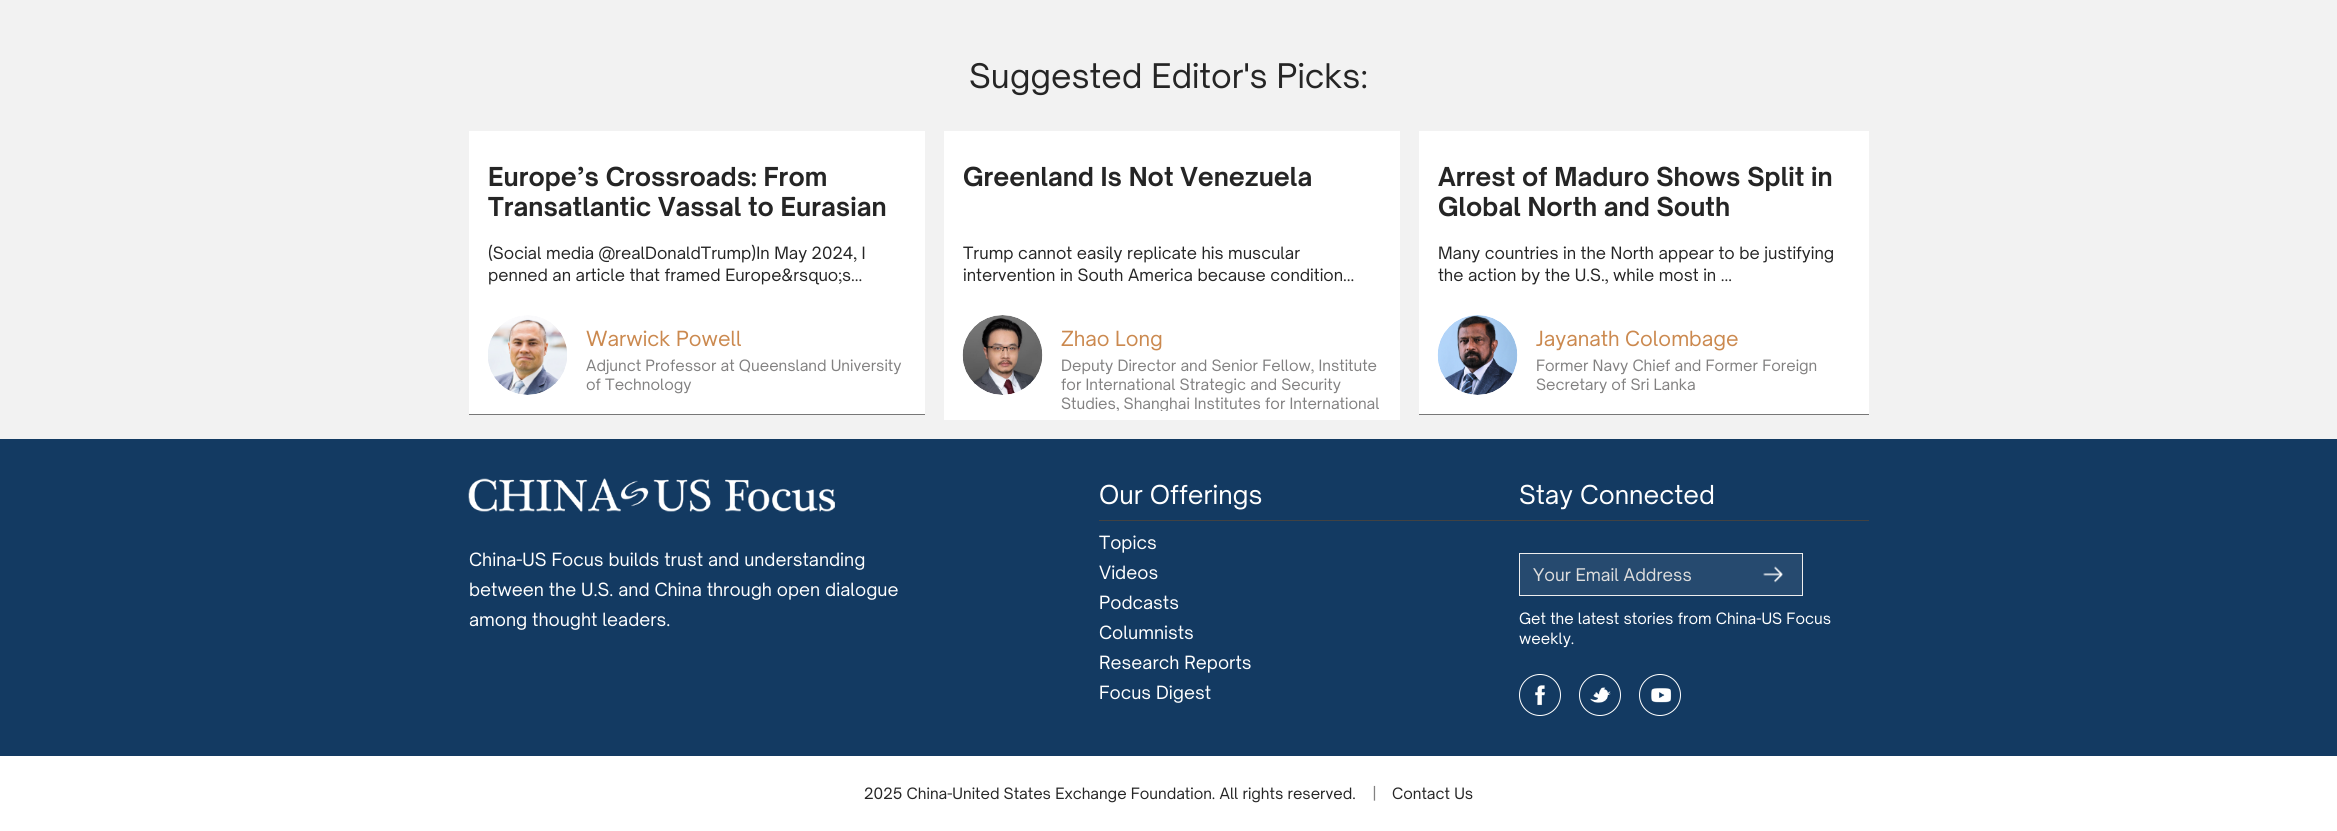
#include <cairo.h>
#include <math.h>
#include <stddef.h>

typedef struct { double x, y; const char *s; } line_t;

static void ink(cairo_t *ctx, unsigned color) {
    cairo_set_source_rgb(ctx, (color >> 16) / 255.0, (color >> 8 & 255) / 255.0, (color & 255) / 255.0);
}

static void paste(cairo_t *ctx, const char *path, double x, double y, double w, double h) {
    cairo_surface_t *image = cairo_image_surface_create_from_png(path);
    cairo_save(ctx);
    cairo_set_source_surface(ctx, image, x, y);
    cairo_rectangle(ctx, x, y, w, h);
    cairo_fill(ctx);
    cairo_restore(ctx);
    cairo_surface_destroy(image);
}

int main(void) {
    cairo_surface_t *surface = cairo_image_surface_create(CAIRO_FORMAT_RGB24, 2337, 831);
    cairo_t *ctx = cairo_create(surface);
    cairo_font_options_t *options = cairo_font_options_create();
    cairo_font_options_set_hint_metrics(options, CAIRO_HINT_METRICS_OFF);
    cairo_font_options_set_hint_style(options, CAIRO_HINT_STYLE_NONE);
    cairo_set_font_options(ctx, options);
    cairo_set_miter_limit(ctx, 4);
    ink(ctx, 0xF2F2F2);
    cairo_paint(ctx);
    cairo_select_font_face(ctx, "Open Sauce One", CAIRO_FONT_SLANT_NORMAL, CAIRO_FONT_WEIGHT_NORMAL);
    cairo_set_font_size(ctx, 32.5);
    ink(ctx, 0x252525);
    cairo_move_to(ctx, 969, 88);
    cairo_show_text(ctx, "Suggested Editor's Picks:");
    ink(ctx, 0xFFFFFF);
    cairo_rectangle(ctx, 469, 131, 456, 283);
    cairo_fill(ctx);
    ink(ctx, 0x777777);
    cairo_rectangle(ctx, 469, 414, 456, 1);
    cairo_fill(ctx);
    cairo_select_font_face(ctx, "Open Sauce One", CAIRO_FONT_SLANT_NORMAL, CAIRO_FONT_WEIGHT_BOLD);
    cairo_set_font_size(ctx, 25);
    ink(ctx, 0x252525);
    cairo_move_to(ctx, 488, 186);
    cairo_show_text(ctx, "Europe’s Crossroads: From");
    cairo_save(ctx);
    cairo_rectangle(ctx, 488, 150, 418, 79);
    cairo_clip(ctx);
    cairo_move_to(ctx, 488, 216);
    cairo_show_text(ctx, "Transatlantic Vassal to Eurasian");
    cairo_restore(ctx);
    cairo_select_font_face(ctx, "Open Sauce One", CAIRO_FONT_SLANT_NORMAL, CAIRO_FONT_WEIGHT_NORMAL);
    cairo_set_font_size(ctx, 16.25);
    cairo_move_to(ctx, 488, 259);
    cairo_show_text(ctx, "(Social media @realDonaldTrump)In May 2024, I");
    cairo_move_to(ctx, 488, 281);
    cairo_show_text(ctx, "penned an article that framed Europe&rsquo;s...");
    paste(ctx, "media/1.png", 488, 315, 79, 80);
    cairo_set_font_size(ctx, 20);
    ink(ctx, 0xCB894F);
    cairo_move_to(ctx, 586, 346);
    cairo_show_text(ctx, "Warwick Powell");
    cairo_set_font_size(ctx, 15);
    ink(ctx, 0x828181);
    cairo_move_to(ctx, 586, 371);
    cairo_show_text(ctx, "Adjunct Professor at Queensland University");
    cairo_move_to(ctx, 586, 390);
    cairo_show_text(ctx, "of Technology");
    ink(ctx, 0xFFFFFF);
    cairo_rectangle(ctx, 944, 131, 456, 289);
    cairo_fill(ctx);
    cairo_select_font_face(ctx, "Open Sauce One", CAIRO_FONT_SLANT_NORMAL, CAIRO_FONT_WEIGHT_BOLD);
    cairo_set_font_size(ctx, 25);
    ink(ctx, 0x252525);
    cairo_move_to(ctx, 963, 186);
    cairo_show_text(ctx, "Greenland Is Not Venezuela");
    cairo_select_font_face(ctx, "Open Sauce One", CAIRO_FONT_SLANT_NORMAL, CAIRO_FONT_WEIGHT_NORMAL);
    cairo_set_font_size(ctx, 16.25);
    cairo_move_to(ctx, 963, 259);
    cairo_show_text(ctx, "Trump cannot easily replicate his muscular");
    cairo_move_to(ctx, 963, 281);
    cairo_show_text(ctx, "intervention in South America because condition...");
    paste(ctx, "media/2.png", 962, 315, 81, 80);
    cairo_set_font_size(ctx, 20);
    ink(ctx, 0xCB894F);
    cairo_move_to(ctx, 1061, 346);
    cairo_show_text(ctx, "Zhao Long");
    cairo_set_font_size(ctx, 15);
    ink(ctx, 0x828181);
    cairo_move_to(ctx, 1061, 371);
    cairo_show_text(ctx, "Deputy Director and Senior Fellow, Institute");
    cairo_move_to(ctx, 1061, 390);
    cairo_show_text(ctx, "for International Strategic and Security");
    cairo_save(ctx);
    cairo_rectangle(ctx, 1061, 315, 320, 96);
    cairo_clip(ctx);
    cairo_move_to(ctx, 1061, 409);
    cairo_show_text(ctx, "Studies, Shanghai Institutes for International");
    cairo_restore(ctx);
    ink(ctx, 0xFFFFFF);
    cairo_rectangle(ctx, 1419, 131, 450, 283);
    cairo_fill(ctx);
    ink(ctx, 0x777777);
    cairo_rectangle(ctx, 1419, 414, 450, 1);
    cairo_fill(ctx);
    cairo_select_font_face(ctx, "Open Sauce One", CAIRO_FONT_SLANT_NORMAL, CAIRO_FONT_WEIGHT_BOLD);
    cairo_set_font_size(ctx, 25);
    ink(ctx, 0x252525);
    cairo_move_to(ctx, 1438, 186);
    cairo_show_text(ctx, "Arrest of Maduro Shows Split in");
    cairo_move_to(ctx, 1438, 216);
    cairo_show_text(ctx, "Global North and South");
    cairo_select_font_face(ctx, "Open Sauce One", CAIRO_FONT_SLANT_NORMAL, CAIRO_FONT_WEIGHT_NORMAL);
    cairo_set_font_size(ctx, 16.25);
    cairo_move_to(ctx, 1438, 259);
    cairo_show_text(ctx, "Many countries in the North appear to be justifying");
    cairo_move_to(ctx, 1438, 281);
    cairo_show_text(ctx, "the action by the U.S., while most in ...");
    paste(ctx, "media/3.png", 1437, 315, 81, 80);
    cairo_set_font_size(ctx, 20);
    ink(ctx, 0xCB894F);
    cairo_move_to(ctx, 1536, 346);
    cairo_show_text(ctx, "Jayanath Colombage");
    cairo_set_font_size(ctx, 15);
    ink(ctx, 0x828181);
    cairo_move_to(ctx, 1536, 371);
    cairo_show_text(ctx, "Former Navy Chief and Former Foreign");
    cairo_move_to(ctx, 1536, 390);
    cairo_show_text(ctx, "Secretary of Sri Lanka");
    ink(ctx, 0x133A62);
    cairo_rectangle(ctx, 0, 439, 2337, 317);
    cairo_fill(ctx);
    paste(ctx, "media/4.png", 468, 478, 367, 34);
    cairo_set_font_size(ctx, 17.5);
    ink(ctx, 0xFFFFFF);
    {
        static const line_t items[] = {
            {469, 566, "China-US Focus builds trust and understanding"},
            {469, 596, "between the U.S. and China through open dialogue"},
            {469, 626, "among thought leaders."},
        };
        for (size_t i = 0; i < sizeof items / sizeof *items; i++) {
            cairo_move_to(ctx, items[i].x, items[i].y);
            cairo_show_text(ctx, items[i].s);
        }
    }
    ink(ctx, 0x424242);
    cairo_rectangle(ctx, 1099, 520, 770, 1);
    cairo_fill(ctx);
    cairo_set_font_size(ctx, 25);
    ink(ctx, 0xFFFFFF);
    cairo_move_to(ctx, 1099, 504);
    cairo_show_text(ctx, "Our Offerings");
    cairo_set_font_size(ctx, 17.5);
    {
        static const line_t items[] = {
            {1099, 549, "Topics"},
            {1099, 579, "Videos"},
            {1099, 609, "Podcasts"},
            {1099, 639, "Columnists"},
            {1099, 669, "Research Reports"},
            {1099, 699, "Focus Digest"},
        };
        for (size_t i = 0; i < sizeof items / sizeof *items; i++) {
            cairo_move_to(ctx, items[i].x, items[i].y);
            cairo_show_text(ctx, items[i].s);
        }
    }
    cairo_set_font_size(ctx, 25);
    cairo_move_to(ctx, 1519, 504);
    cairo_show_text(ctx, "Stay Connected");
    ink(ctx, 0x264A6F);
    cairo_rectangle(ctx, 1519.5, 553.5, 283, 42);
    cairo_fill_preserve(ctx);
    ink(ctx, 0xEEEEEE);
    cairo_set_line_width(ctx, 1);
    cairo_stroke(ctx);
    cairo_set_font_size(ctx, 16.75);
    ink(ctx, 0xDDDDDD);
    cairo_move_to(ctx, 1533, 581);
    cairo_show_text(ctx, "Your Email Address");
    paste(ctx, "media/5.png", 1763, 566, 20, 17);
    cairo_set_font_size(ctx, 15);
    ink(ctx, 0xFFFFFF);
    cairo_move_to(ctx, 1519, 624);
    cairo_show_text(ctx, "Get the latest stories from China-US Focus");
    cairo_move_to(ctx, 1519, 644);
    cairo_show_text(ctx, "weekly.");
    paste(ctx, "media/6.png", 1535, 685, 10, 21);
    cairo_arc(ctx, 1540, 695, 20.5, 0, 2 * M_PI);
    cairo_stroke(ctx);
    paste(ctx, "media/7.png", 1590, 687, 21, 16);
    cairo_arc(ctx, 1600, 695, 20.5, 0, 2 * M_PI);
    cairo_stroke(ctx);
    paste(ctx, "media/8.png", 1651, 688, 24, 21);
    cairo_arc(ctx, 1660, 695, 20.5, 0, 2 * M_PI);
    cairo_stroke(ctx);
    cairo_rectangle(ctx, 0, 756, 2337, 75);
    cairo_fill(ctx);
    ink(ctx, 0x252525);
    cairo_move_to(ctx, 864, 799);
    cairo_show_text(ctx, "2025 China-United States Exchange Foundation. All rights reserved.");
    ink(ctx, 0x828181);
    cairo_move_to(ctx, 1372, 799);
    cairo_show_text(ctx, "|");
    ink(ctx, 0x252525);
    cairo_move_to(ctx, 1392, 799);
    cairo_show_text(ctx, "Contact Us");
    cairo_surface_write_to_png(surface, "image.png");
    cairo_font_options_destroy(options);
    cairo_destroy(ctx);
    cairo_surface_destroy(surface);
    return 0;
}
